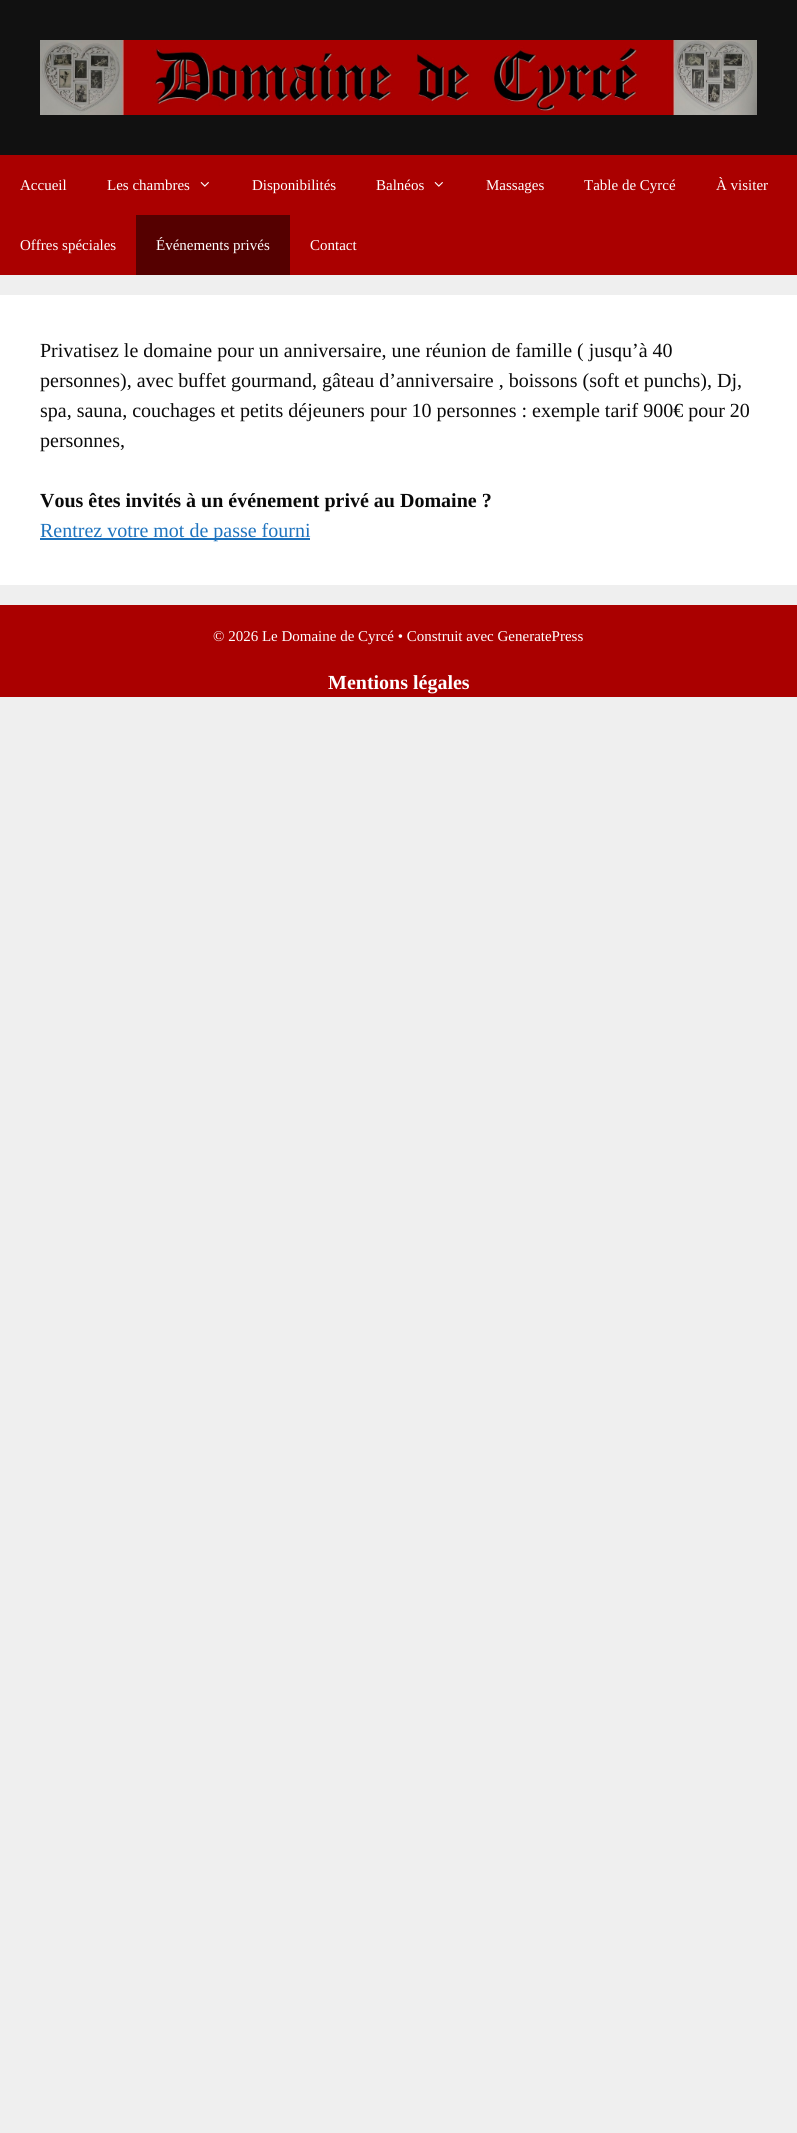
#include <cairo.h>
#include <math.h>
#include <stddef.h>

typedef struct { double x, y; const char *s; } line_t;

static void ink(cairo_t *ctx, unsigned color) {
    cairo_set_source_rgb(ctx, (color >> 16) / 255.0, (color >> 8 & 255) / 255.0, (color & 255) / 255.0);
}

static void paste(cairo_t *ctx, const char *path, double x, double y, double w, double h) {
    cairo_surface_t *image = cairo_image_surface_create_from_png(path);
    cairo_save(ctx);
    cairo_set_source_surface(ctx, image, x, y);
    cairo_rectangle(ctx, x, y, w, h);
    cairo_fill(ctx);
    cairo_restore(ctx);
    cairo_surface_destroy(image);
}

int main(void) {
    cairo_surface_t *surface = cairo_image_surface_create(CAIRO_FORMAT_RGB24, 797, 2133);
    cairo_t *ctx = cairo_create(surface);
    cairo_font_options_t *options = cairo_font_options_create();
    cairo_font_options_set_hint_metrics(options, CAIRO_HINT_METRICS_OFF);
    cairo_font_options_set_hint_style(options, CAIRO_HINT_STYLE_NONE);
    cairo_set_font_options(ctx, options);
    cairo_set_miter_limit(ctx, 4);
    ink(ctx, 0xEFEFEF);
    cairo_paint(ctx);
    ink(ctx, 0x111111);
    cairo_rectangle(ctx, 0, 0, 797, 155);
    cairo_fill(ctx);
    paste(ctx, "media/1.png", 40, 40, 717, 75);
    ink(ctx, 0xAA0000);
    cairo_rectangle(ctx, 0, 155, 797, 120);
    cairo_fill(ctx);
    cairo_select_font_face(ctx, "Liberation Serif", CAIRO_FONT_SLANT_NORMAL, CAIRO_FONT_WEIGHT_NORMAL);
    cairo_set_font_size(ctx, 15);
    ink(ctx, 0xFFFFFF);
    cairo_move_to(ctx, 20, 190);
    cairo_show_text(ctx, "Accueil");
    cairo_move_to(ctx, 107, 190);
    cairo_show_text(ctx, "Les chambres");
    paste(ctx, "media/2.png", 200, 182, 9, 5);
    cairo_move_to(ctx, 252, 190);
    cairo_show_text(ctx, "Disponibilités");
    cairo_move_to(ctx, 376, 190);
    cairo_show_text(ctx, "Balnéos");
    paste(ctx, "media/2.png", 434, 182, 9, 5);
    {
        static const line_t items[] = {
            {486, 190, "Massages"},
            {584, 190, "Table de Cyrcé"},
            {716, 190, "À visiter"},
            {20, 250, "Offres spéciales"},
        };
        for (size_t i = 0; i < sizeof items / sizeof *items; i++) {
            cairo_move_to(ctx, items[i].x, items[i].y);
            cairo_show_text(ctx, items[i].s);
        }
    }
    ink(ctx, 0x550000);
    cairo_rectangle(ctx, 136, 215, 154, 60);
    cairo_fill(ctx);
    ink(ctx, 0xFFFFFF);
    cairo_move_to(ctx, 156, 250);
    cairo_show_text(ctx, "Événements privés");
    cairo_move_to(ctx, 310, 250);
    cairo_show_text(ctx, "Contact");
    cairo_rectangle(ctx, 0, 295, 797, 290);
    cairo_fill(ctx);
    cairo_set_font_size(ctx, 20);
    ink(ctx, 0x0A0A0A);
    {
        static const line_t items[] = {
            {40, 357, "Privatisez le domaine pour un anniversaire, une réunion de famille ( jusqu’à 40"},
            {40, 387, "personnes), avec buffet gourmand, gâteau d’anniversaire , boissons (soft et punchs), Dj,"},
            {40, 417, "spa, sauna, couchages et petits déjeuners pour 10 personnes : exemple tarif 900€ pour 20"},
            {40, 447, "personnes,"},
        };
        for (size_t i = 0; i < sizeof items / sizeof *items; i++) {
            cairo_move_to(ctx, items[i].x, items[i].y);
            cairo_show_text(ctx, items[i].s);
        }
    }
    cairo_select_font_face(ctx, "Liberation Serif", CAIRO_FONT_SLANT_NORMAL, CAIRO_FONT_WEIGHT_BOLD);
    cairo_move_to(ctx, 40, 507);
    cairo_show_text(ctx, "Vous êtes invités à un événement privé au Domaine ?");
    ink(ctx, 0x1E73BE);
    cairo_rectangle(ctx, 40, 538, 270, 2);
    cairo_fill(ctx);
    cairo_select_font_face(ctx, "Liberation Serif", CAIRO_FONT_SLANT_NORMAL, CAIRO_FONT_WEIGHT_NORMAL);
    cairo_move_to(ctx, 40, 537);
    cairo_show_text(ctx, "Rentrez votre mot de passe fourni");
    ink(ctx, 0xAA0000);
    cairo_rectangle(ctx, 0, 605, 797, 92);
    cairo_fill(ctx);
    cairo_set_font_size(ctx, 15);
    ink(ctx, 0xFFFFFF);
    cairo_move_to(ctx, 213, 641);
    cairo_show_text(ctx, "© 2026 Le Domaine de Cyrcé • Construit avec GeneratePress");
    cairo_select_font_face(ctx, "Liberation Serif", CAIRO_FONT_SLANT_NORMAL, CAIRO_FONT_WEIGHT_BOLD);
    cairo_set_font_size(ctx, 20);
    cairo_move_to(ctx, 328, 689);
    cairo_show_text(ctx, "Mentions légales");
    cairo_surface_write_to_png(surface, "image.png");
    cairo_font_options_destroy(options);
    cairo_destroy(ctx);
    cairo_surface_destroy(surface);
    return 0;
}
